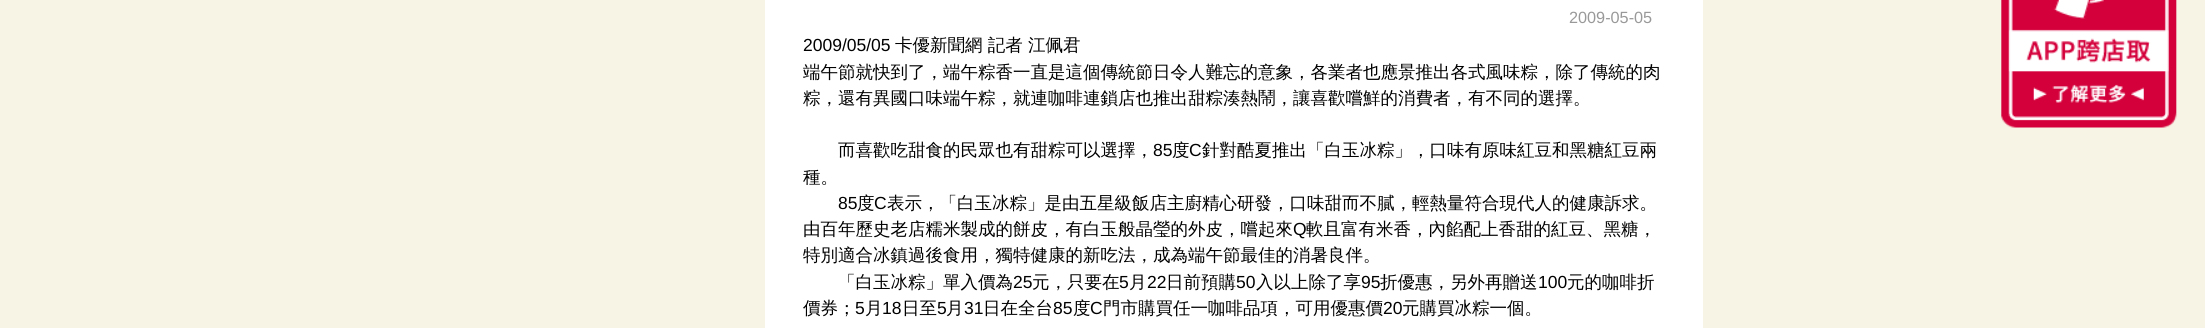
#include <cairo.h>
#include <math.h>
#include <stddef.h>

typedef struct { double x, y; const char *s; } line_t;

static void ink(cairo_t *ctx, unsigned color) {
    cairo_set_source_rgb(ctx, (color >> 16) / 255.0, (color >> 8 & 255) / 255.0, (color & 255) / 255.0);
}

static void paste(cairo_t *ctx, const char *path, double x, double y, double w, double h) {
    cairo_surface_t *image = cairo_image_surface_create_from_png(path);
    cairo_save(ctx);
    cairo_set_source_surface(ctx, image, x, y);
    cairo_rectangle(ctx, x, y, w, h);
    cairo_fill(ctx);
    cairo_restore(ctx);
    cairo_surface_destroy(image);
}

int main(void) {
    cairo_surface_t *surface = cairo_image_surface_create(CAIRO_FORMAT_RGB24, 2205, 328);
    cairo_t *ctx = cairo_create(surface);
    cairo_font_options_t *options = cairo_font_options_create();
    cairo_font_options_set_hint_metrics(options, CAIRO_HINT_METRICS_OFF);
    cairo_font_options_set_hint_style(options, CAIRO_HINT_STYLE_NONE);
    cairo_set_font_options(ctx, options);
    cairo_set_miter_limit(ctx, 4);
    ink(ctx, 0xF7F4E5);
    cairo_paint(ctx);
    ink(ctx, 0xFFFFFF);
    cairo_rectangle(ctx, 765, 0, 938, 328);
    cairo_fill(ctx);
    cairo_select_font_face(ctx, "Liberation Sans", CAIRO_FONT_SLANT_NORMAL, CAIRO_FONT_WEIGHT_NORMAL);
    cairo_set_font_size(ctx, 16.25);
    ink(ctx, 0x999999);
    cairo_move_to(ctx, 1569, 23);
    cairo_show_text(ctx, "2009-05-05");
    cairo_set_font_size(ctx, 17.5);
    ink(ctx, 0x000000);
    cairo_move_to(ctx, 803, 51);
    cairo_show_text(ctx, "2009/05/05");
    cairo_select_font_face(ctx, "WenQuanYi Zen Hei Medium", CAIRO_FONT_SLANT_NORMAL, CAIRO_FONT_WEIGHT_NORMAL);
    {
        static const line_t items[] = {
            {895, 51, "卡優新聞網 記者 江佩君"},
            {803, 78, "端午節就快到了，端午粽香一直是這個傳統節日令人難忘的意象，各業者也應景推出各式風味粽，除了傳統的肉"},
            {803, 104, "粽，還有異國口味端午粽，就連咖啡連鎖店也推出甜粽湊熱鬧，讓喜歡嚐鮮的消費者，有不同的選擇。"},
            {838, 156, "而喜歡吃甜食的民眾也有甜粽可以選擇，"},
        };
        for (size_t i = 0; i < sizeof items / sizeof *items; i++) {
            cairo_move_to(ctx, items[i].x, items[i].y);
            cairo_show_text(ctx, items[i].s);
        }
    }
    cairo_select_font_face(ctx, "Liberation Sans", CAIRO_FONT_SLANT_NORMAL, CAIRO_FONT_WEIGHT_NORMAL);
    cairo_move_to(ctx, 1153, 156);
    cairo_show_text(ctx, "85");
    cairo_select_font_face(ctx, "WenQuanYi Zen Hei Medium", CAIRO_FONT_SLANT_NORMAL, CAIRO_FONT_WEIGHT_NORMAL);
    cairo_move_to(ctx, 1172, 156);
    cairo_show_text(ctx, "度");
    cairo_select_font_face(ctx, "Liberation Sans", CAIRO_FONT_SLANT_NORMAL, CAIRO_FONT_WEIGHT_NORMAL);
    cairo_move_to(ctx, 1189, 156);
    cairo_show_text(ctx, "C");
    cairo_select_font_face(ctx, "WenQuanYi Zen Hei Medium", CAIRO_FONT_SLANT_NORMAL, CAIRO_FONT_WEIGHT_NORMAL);
    cairo_move_to(ctx, 1202, 156);
    cairo_show_text(ctx, "針對酷夏推出「白玉冰粽」，口味有原味紅豆和黑糖紅豆兩");
    cairo_move_to(ctx, 803, 183);
    cairo_show_text(ctx, "種。");
    cairo_select_font_face(ctx, "Liberation Sans", CAIRO_FONT_SLANT_NORMAL, CAIRO_FONT_WEIGHT_NORMAL);
    cairo_move_to(ctx, 838, 209);
    cairo_show_text(ctx, "85");
    cairo_select_font_face(ctx, "WenQuanYi Zen Hei Medium", CAIRO_FONT_SLANT_NORMAL, CAIRO_FONT_WEIGHT_NORMAL);
    cairo_move_to(ctx, 857, 209);
    cairo_show_text(ctx, "度");
    cairo_select_font_face(ctx, "Liberation Sans", CAIRO_FONT_SLANT_NORMAL, CAIRO_FONT_WEIGHT_NORMAL);
    cairo_move_to(ctx, 874, 209);
    cairo_show_text(ctx, "C");
    cairo_select_font_face(ctx, "WenQuanYi Zen Hei Medium", CAIRO_FONT_SLANT_NORMAL, CAIRO_FONT_WEIGHT_NORMAL);
    cairo_move_to(ctx, 887, 209);
    cairo_show_text(ctx, "表示，「白玉冰粽」是由五星級飯店主廚精心研發，口味甜而不膩，輕熱量符合現代人的健康訴求。");
    cairo_move_to(ctx, 803, 235);
    cairo_show_text(ctx, "由百年歷史老店糯米製成的餅皮，有白玉般晶瑩的外皮，嚐起來");
    cairo_select_font_face(ctx, "Liberation Sans", CAIRO_FONT_SLANT_NORMAL, CAIRO_FONT_WEIGHT_NORMAL);
    cairo_move_to(ctx, 1293, 235);
    cairo_show_text(ctx, "Q");
    cairo_select_font_face(ctx, "WenQuanYi Zen Hei Medium", CAIRO_FONT_SLANT_NORMAL, CAIRO_FONT_WEIGHT_NORMAL);
    {
        static const line_t items[] = {
            {1306, 235, "軟且富有米香，內餡配上香甜的紅豆、黑糖，"},
            {803, 261, "特別適合冰鎮過後食用，獨特健康的新吃法，成為端午節最佳的消暑良伴。"},
            {838, 288, "「白玉冰粽」單入價為"},
        };
        for (size_t i = 0; i < sizeof items / sizeof *items; i++) {
            cairo_move_to(ctx, items[i].x, items[i].y);
            cairo_show_text(ctx, items[i].s);
        }
    }
    cairo_select_font_face(ctx, "Liberation Sans", CAIRO_FONT_SLANT_NORMAL, CAIRO_FONT_WEIGHT_NORMAL);
    cairo_move_to(ctx, 1013, 288);
    cairo_show_text(ctx, "25");
    cairo_select_font_face(ctx, "WenQuanYi Zen Hei Medium", CAIRO_FONT_SLANT_NORMAL, CAIRO_FONT_WEIGHT_NORMAL);
    cairo_move_to(ctx, 1032, 288);
    cairo_show_text(ctx, "元，只要在");
    cairo_select_font_face(ctx, "Liberation Sans", CAIRO_FONT_SLANT_NORMAL, CAIRO_FONT_WEIGHT_NORMAL);
    cairo_move_to(ctx, 1119, 288);
    cairo_show_text(ctx, "5");
    cairo_select_font_face(ctx, "WenQuanYi Zen Hei Medium", CAIRO_FONT_SLANT_NORMAL, CAIRO_FONT_WEIGHT_NORMAL);
    cairo_move_to(ctx, 1129, 288);
    cairo_show_text(ctx, "月");
    cairo_select_font_face(ctx, "Liberation Sans", CAIRO_FONT_SLANT_NORMAL, CAIRO_FONT_WEIGHT_NORMAL);
    cairo_move_to(ctx, 1147, 288);
    cairo_show_text(ctx, "22");
    cairo_select_font_face(ctx, "WenQuanYi Zen Hei Medium", CAIRO_FONT_SLANT_NORMAL, CAIRO_FONT_WEIGHT_NORMAL);
    cairo_move_to(ctx, 1166, 288);
    cairo_show_text(ctx, "日前預購");
    cairo_select_font_face(ctx, "Liberation Sans", CAIRO_FONT_SLANT_NORMAL, CAIRO_FONT_WEIGHT_NORMAL);
    cairo_move_to(ctx, 1236, 288);
    cairo_show_text(ctx, "50");
    cairo_select_font_face(ctx, "WenQuanYi Zen Hei Medium", CAIRO_FONT_SLANT_NORMAL, CAIRO_FONT_WEIGHT_NORMAL);
    cairo_move_to(ctx, 1256, 288);
    cairo_show_text(ctx, "入以上除了享");
    cairo_select_font_face(ctx, "Liberation Sans", CAIRO_FONT_SLANT_NORMAL, CAIRO_FONT_WEIGHT_NORMAL);
    cairo_move_to(ctx, 1361, 288);
    cairo_show_text(ctx, "95");
    cairo_select_font_face(ctx, "WenQuanYi Zen Hei Medium", CAIRO_FONT_SLANT_NORMAL, CAIRO_FONT_WEIGHT_NORMAL);
    cairo_move_to(ctx, 1380, 288);
    cairo_show_text(ctx, "折優惠，另外再贈送");
    cairo_select_font_face(ctx, "Liberation Sans", CAIRO_FONT_SLANT_NORMAL, CAIRO_FONT_WEIGHT_NORMAL);
    cairo_move_to(ctx, 1538, 288);
    cairo_show_text(ctx, "100");
    cairo_select_font_face(ctx, "WenQuanYi Zen Hei Medium", CAIRO_FONT_SLANT_NORMAL, CAIRO_FONT_WEIGHT_NORMAL);
    cairo_move_to(ctx, 1567, 288);
    cairo_show_text(ctx, "元的咖啡折");
    cairo_move_to(ctx, 803, 314);
    cairo_show_text(ctx, "價券；");
    cairo_select_font_face(ctx, "Liberation Sans", CAIRO_FONT_SLANT_NORMAL, CAIRO_FONT_WEIGHT_NORMAL);
    cairo_move_to(ctx, 855, 314);
    cairo_show_text(ctx, "5");
    cairo_select_font_face(ctx, "WenQuanYi Zen Hei Medium", CAIRO_FONT_SLANT_NORMAL, CAIRO_FONT_WEIGHT_NORMAL);
    cairo_move_to(ctx, 865, 314);
    cairo_show_text(ctx, "月");
    cairo_select_font_face(ctx, "Liberation Sans", CAIRO_FONT_SLANT_NORMAL, CAIRO_FONT_WEIGHT_NORMAL);
    cairo_move_to(ctx, 882, 314);
    cairo_show_text(ctx, "18");
    cairo_select_font_face(ctx, "WenQuanYi Zen Hei Medium", CAIRO_FONT_SLANT_NORMAL, CAIRO_FONT_WEIGHT_NORMAL);
    cairo_move_to(ctx, 902, 314);
    cairo_show_text(ctx, "日至");
    cairo_select_font_face(ctx, "Liberation Sans", CAIRO_FONT_SLANT_NORMAL, CAIRO_FONT_WEIGHT_NORMAL);
    cairo_move_to(ctx, 937, 314);
    cairo_show_text(ctx, "5");
    cairo_select_font_face(ctx, "WenQuanYi Zen Hei Medium", CAIRO_FONT_SLANT_NORMAL, CAIRO_FONT_WEIGHT_NORMAL);
    cairo_move_to(ctx, 946, 314);
    cairo_show_text(ctx, "月");
    cairo_select_font_face(ctx, "Liberation Sans", CAIRO_FONT_SLANT_NORMAL, CAIRO_FONT_WEIGHT_NORMAL);
    cairo_move_to(ctx, 964, 314);
    cairo_show_text(ctx, "31");
    cairo_select_font_face(ctx, "WenQuanYi Zen Hei Medium", CAIRO_FONT_SLANT_NORMAL, CAIRO_FONT_WEIGHT_NORMAL);
    cairo_move_to(ctx, 983, 314);
    cairo_show_text(ctx, "日在全台");
    cairo_select_font_face(ctx, "Liberation Sans", CAIRO_FONT_SLANT_NORMAL, CAIRO_FONT_WEIGHT_NORMAL);
    cairo_move_to(ctx, 1053, 314);
    cairo_show_text(ctx, "85");
    cairo_select_font_face(ctx, "WenQuanYi Zen Hei Medium", CAIRO_FONT_SLANT_NORMAL, CAIRO_FONT_WEIGHT_NORMAL);
    cairo_move_to(ctx, 1073, 314);
    cairo_show_text(ctx, "度");
    cairo_select_font_face(ctx, "Liberation Sans", CAIRO_FONT_SLANT_NORMAL, CAIRO_FONT_WEIGHT_NORMAL);
    cairo_move_to(ctx, 1090, 314);
    cairo_show_text(ctx, "C");
    cairo_select_font_face(ctx, "WenQuanYi Zen Hei Medium", CAIRO_FONT_SLANT_NORMAL, CAIRO_FONT_WEIGHT_NORMAL);
    cairo_move_to(ctx, 1103, 314);
    cairo_show_text(ctx, "門市購買任一咖啡品項，可用優惠價");
    cairo_select_font_face(ctx, "Liberation Sans", CAIRO_FONT_SLANT_NORMAL, CAIRO_FONT_WEIGHT_NORMAL);
    cairo_move_to(ctx, 1383, 314);
    cairo_show_text(ctx, "20");
    cairo_select_font_face(ctx, "WenQuanYi Zen Hei Medium", CAIRO_FONT_SLANT_NORMAL, CAIRO_FONT_WEIGHT_NORMAL);
    cairo_move_to(ctx, 1402, 314);
    cairo_show_text(ctx, "元購買冰粽一個。");
    paste(ctx, "media/1.png", 2001, 0, 176, 128);
    cairo_surface_write_to_png(surface, "image.png");
    cairo_font_options_destroy(options);
    cairo_destroy(ctx);
    cairo_surface_destroy(surface);
    return 0;
}
